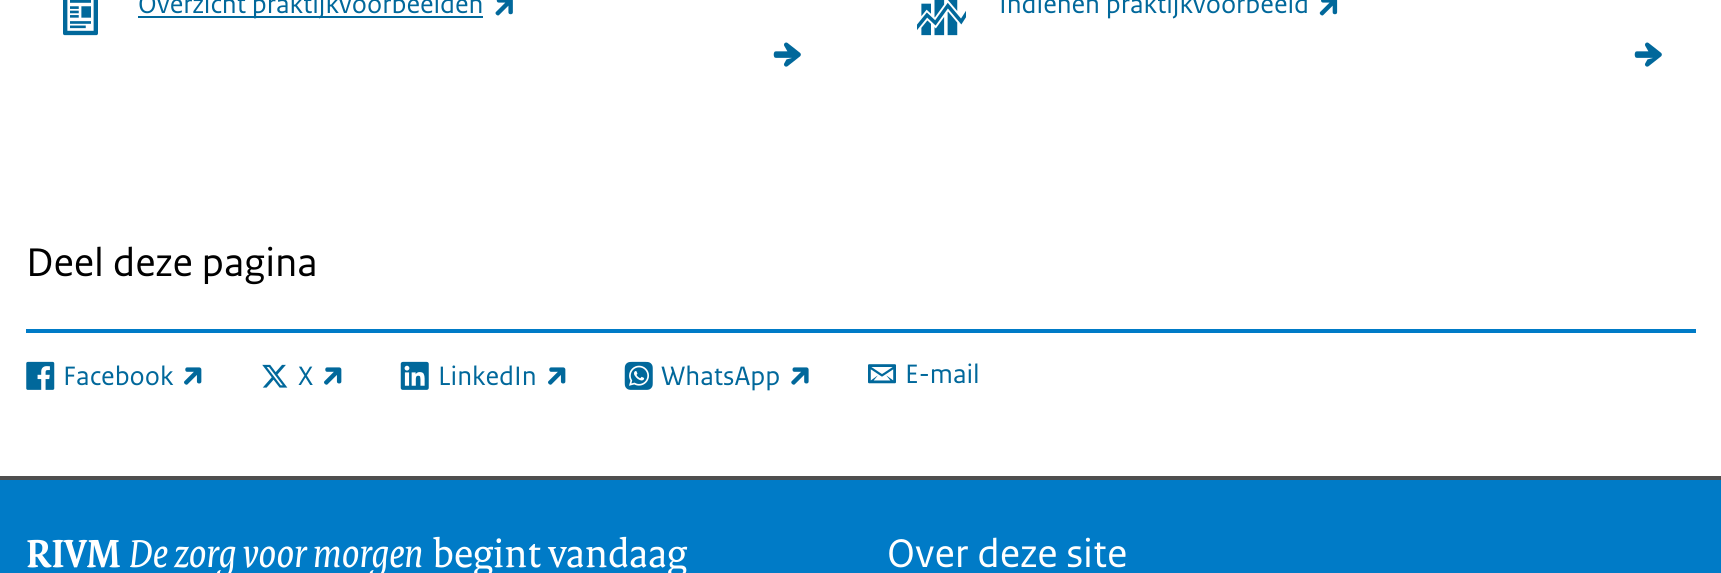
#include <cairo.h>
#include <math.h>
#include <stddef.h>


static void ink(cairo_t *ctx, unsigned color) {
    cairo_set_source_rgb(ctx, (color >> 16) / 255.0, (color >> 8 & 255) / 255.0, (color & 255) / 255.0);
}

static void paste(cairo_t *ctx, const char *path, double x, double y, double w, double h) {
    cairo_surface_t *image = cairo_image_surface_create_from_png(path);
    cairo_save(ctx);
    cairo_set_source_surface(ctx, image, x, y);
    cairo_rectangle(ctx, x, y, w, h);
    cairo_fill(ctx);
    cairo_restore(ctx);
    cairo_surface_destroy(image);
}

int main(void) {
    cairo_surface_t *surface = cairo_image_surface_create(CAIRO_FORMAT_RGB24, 1721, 573);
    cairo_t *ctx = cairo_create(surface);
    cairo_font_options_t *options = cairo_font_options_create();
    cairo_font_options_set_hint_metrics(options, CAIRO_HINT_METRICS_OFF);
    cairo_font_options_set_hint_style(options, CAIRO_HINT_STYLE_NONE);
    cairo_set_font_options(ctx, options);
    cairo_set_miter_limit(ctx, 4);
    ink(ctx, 0xFFFFFF);
    cairo_paint(ctx);
    paste(ctx, "media/1.png", 63, 0, 35, 36);
    ink(ctx, 0x01689B);
    cairo_rectangle(ctx, 138, 16, 345, 2);
    cairo_fill(ctx);
    cairo_select_font_face(ctx, "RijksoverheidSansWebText", CAIRO_FONT_SLANT_NORMAL, CAIRO_FONT_WEIGHT_NORMAL);
    cairo_set_font_size(ctx, 28);
    cairo_move_to(ctx, 138, 13);
    cairo_show_text(ctx, "Overzicht praktijkvoorbeelden");
    paste(ctx, "media/2.png", 495, 0, 18, 16);
    paste(ctx, "media/3.png", 773, 42, 28, 25);
    paste(ctx, "media/4.png", 917, 0, 49, 36);
    cairo_move_to(ctx, 999, 13);
    cairo_show_text(ctx, "Indienen praktijkvoorbeeld");
    paste(ctx, "media/5.png", 1319, 0, 19, 16);
    paste(ctx, "media/3.png", 1634, 42, 28, 25);
    cairo_set_font_size(ctx, 42);
    ink(ctx, 0x000000);
    cairo_move_to(ctx, 26, 276);
    cairo_show_text(ctx, "Deel deze pagina");
    ink(ctx, 0x007BC7);
    cairo_rectangle(ctx, 26, 329, 1670, 4);
    cairo_fill(ctx);
    paste(ctx, "media/6.png", 26, 361, 29, 29);
    cairo_set_font_size(ctx, 28);
    ink(ctx, 0x01689B);
    cairo_move_to(ctx, 63, 385);
    cairo_show_text(ctx, "Facebook");
    paste(ctx, "media/7.png", 184, 367, 18, 18);
    paste(ctx, "media/8.png", 262, 364, 26, 24);
    cairo_move_to(ctx, 298, 385);
    cairo_show_text(ctx, "X");
    paste(ctx, "media/7.png", 324, 367, 18, 18);
    paste(ctx, "media/9.png", 400, 361, 29, 29);
    cairo_move_to(ctx, 438, 385);
    cairo_show_text(ctx, "LinkedIn");
    paste(ctx, "media/7.png", 548, 367, 18, 18);
    paste(ctx, "media/10.png", 624, 361, 29, 29);
    cairo_move_to(ctx, 661, 385);
    cairo_show_text(ctx, "WhatsApp");
    paste(ctx, "media/11.png", 791, 367, 18, 18);
    paste(ctx, "media/12.png", 868, 364, 28, 20);
    cairo_move_to(ctx, 905, 383);
    cairo_show_text(ctx, "E-mail");
    ink(ctx, 0x007BC7);
    cairo_rectangle(ctx, 0, 480, 1721, 93);
    cairo_fill(ctx);
    ink(ctx, 0x4E4E4E);
    cairo_rectangle(ctx, 0, 476, 1721, 4);
    cairo_fill(ctx);
    cairo_select_font_face(ctx, "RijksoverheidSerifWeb", CAIRO_FONT_SLANT_NORMAL, CAIRO_FONT_WEIGHT_BOLD);
    cairo_set_font_size(ctx, 42);
    ink(ctx, 0xFFFFFF);
    cairo_move_to(ctx, 26, 567);
    cairo_show_text(ctx, "RIVM");
    cairo_select_font_face(ctx, "RijksoverheidSerifWeb", CAIRO_FONT_SLANT_ITALIC, CAIRO_FONT_WEIGHT_NORMAL);
    cairo_move_to(ctx, 129, 567);
    cairo_show_text(ctx, "De zorg voor morgen");
    cairo_select_font_face(ctx, "RijksoverheidSerifWeb", CAIRO_FONT_SLANT_NORMAL, CAIRO_FONT_WEIGHT_NORMAL);
    cairo_move_to(ctx, 432, 567);
    cairo_show_text(ctx, "begint vandaag");
    cairo_select_font_face(ctx, "RijksoverheidSansWebText", CAIRO_FONT_SLANT_NORMAL, CAIRO_FONT_WEIGHT_NORMAL);
    cairo_move_to(ctx, 887, 567);
    cairo_show_text(ctx, "Over deze site");
    cairo_surface_write_to_png(surface, "image.png");
    cairo_font_options_destroy(options);
    cairo_destroy(ctx);
    cairo_surface_destroy(surface);
    return 0;
}
